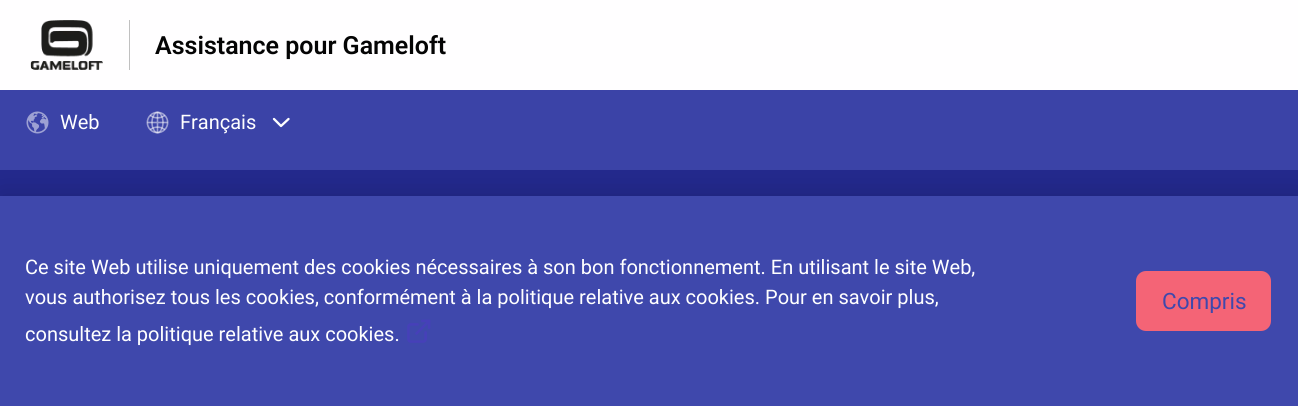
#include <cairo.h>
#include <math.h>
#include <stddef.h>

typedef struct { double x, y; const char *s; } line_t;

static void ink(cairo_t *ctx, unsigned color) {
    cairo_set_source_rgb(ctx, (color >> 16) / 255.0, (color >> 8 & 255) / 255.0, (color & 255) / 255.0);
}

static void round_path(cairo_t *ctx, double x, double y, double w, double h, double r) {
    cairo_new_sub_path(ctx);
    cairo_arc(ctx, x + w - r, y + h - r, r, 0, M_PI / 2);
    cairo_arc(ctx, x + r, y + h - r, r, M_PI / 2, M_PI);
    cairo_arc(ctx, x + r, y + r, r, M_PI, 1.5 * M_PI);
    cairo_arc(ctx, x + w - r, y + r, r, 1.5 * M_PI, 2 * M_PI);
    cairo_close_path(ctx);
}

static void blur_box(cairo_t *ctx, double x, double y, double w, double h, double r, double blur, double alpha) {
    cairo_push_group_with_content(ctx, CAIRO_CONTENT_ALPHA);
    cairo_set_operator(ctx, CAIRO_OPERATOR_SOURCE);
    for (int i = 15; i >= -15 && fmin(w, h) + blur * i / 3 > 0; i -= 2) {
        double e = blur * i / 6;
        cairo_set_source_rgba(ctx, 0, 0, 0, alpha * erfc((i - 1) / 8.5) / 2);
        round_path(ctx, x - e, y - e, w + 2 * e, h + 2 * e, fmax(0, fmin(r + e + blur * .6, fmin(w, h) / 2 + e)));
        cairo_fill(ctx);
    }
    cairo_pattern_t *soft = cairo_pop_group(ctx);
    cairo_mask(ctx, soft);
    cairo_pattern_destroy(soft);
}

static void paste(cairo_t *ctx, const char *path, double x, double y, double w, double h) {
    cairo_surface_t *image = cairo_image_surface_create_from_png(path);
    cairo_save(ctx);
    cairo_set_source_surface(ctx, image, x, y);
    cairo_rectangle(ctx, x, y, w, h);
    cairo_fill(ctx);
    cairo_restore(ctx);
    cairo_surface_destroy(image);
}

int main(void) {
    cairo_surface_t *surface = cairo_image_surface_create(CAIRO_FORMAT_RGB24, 1298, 406);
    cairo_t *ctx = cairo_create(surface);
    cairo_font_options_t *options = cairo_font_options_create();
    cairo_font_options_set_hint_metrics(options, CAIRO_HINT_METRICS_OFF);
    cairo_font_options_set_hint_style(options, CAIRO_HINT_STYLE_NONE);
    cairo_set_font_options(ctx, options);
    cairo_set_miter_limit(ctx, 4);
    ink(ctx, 0x3B43A7);
    cairo_paint(ctx);
    ink(ctx, 0xFFFEFF);
    cairo_rectangle(ctx, 0, 0, 1298, 90);
    cairo_fill(ctx);
    ink(ctx, 0xC0C0C0);
    cairo_rectangle(ctx, 129, 20, 1, 50);
    cairo_fill(ctx);
    paste(ctx, "media/1.png", 30, 20, 73, 50);
    cairo_select_font_face(ctx, "Roboto SemiBold", CAIRO_FONT_SLANT_NORMAL, CAIRO_FONT_WEIGHT_NORMAL);
    cairo_set_font_size(ctx, 25);
    ink(ctx, 0x040404);
    cairo_move_to(ctx, 155, 54);
    cairo_show_text(ctx, "Assistance pour Gameloft");
    paste(ctx, "media/2.png", 26, 111, 23, 23);
    cairo_select_font_face(ctx, "Roboto", CAIRO_FONT_SLANT_NORMAL, CAIRO_FONT_WEIGHT_NORMAL);
    cairo_set_font_size(ctx, 20);
    ink(ctx, 0xFFFFFF);
    cairo_move_to(ctx, 60, 129);
    cairo_show_text(ctx, "Web");
    paste(ctx, "media/3.png", 146, 111, 23, 23);
    cairo_move_to(ctx, 180, 129);
    cairo_show_text(ctx, "Français");
    cairo_new_path(ctx);
    cairo_move_to(ctx, 274, 119);
    cairo_line_to(ctx, 281, 126);
    cairo_line_to(ctx, 288.5, 119);
    cairo_set_line_width(ctx, 2.3);
    cairo_set_line_cap(ctx, CAIRO_LINE_CAP_ROUND);
    cairo_set_line_join(ctx, CAIRO_LINE_JOIN_ROUND);
    cairo_stroke(ctx);
    ink(ctx, 0x23298D);
    cairo_rectangle(ctx, 0, 170, 1298, 26);
    cairo_fill(ctx);
    ink(ctx, 0x000000);
    blur_box(ctx, 0, 196, 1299, 210, 0, 15, 0.16);
    ink(ctx, 0x3F48AC);
    cairo_rectangle(ctx, 0, 196, 1298, 210);
    cairo_fill(ctx);
    ink(ctx, 0xFFFFFF);
    {
        static const line_t items[] = {
            {25, 274, "Ce site Web utilise uniquement des cookies nécessaires à son bon fonctionnement. En utilisant le site Web,"},
            {25, 304, "vous authorisez tous les cookies, conformément à la politique relative aux cookies. Pour en savoir plus,"},
            {25, 341, "consultez la politique relative aux cookies."},
        };
        for (size_t i = 0; i < sizeof items / sizeof *items; i++) {
            cairo_move_to(ctx, items[i].x, items[i].y);
            cairo_show_text(ctx, items[i].s);
        }
    }
    paste(ctx, "media/4.png", 407, 319, 24, 24);
    ink(ctx, 0xF46476);
    round_path(ctx, 1136, 271, 135, 60, 10);
    cairo_fill(ctx);
    cairo_save(ctx);
    cairo_rectangle(ctx, 1161, 290, 85, 23);
    cairo_clip(ctx);
    cairo_set_font_size(ctx, 22.5);
    ink(ctx, 0x3F48AC);
    cairo_move_to(ctx, 1162, 309);
    cairo_show_text(ctx, "Compris");
    cairo_restore(ctx);
    cairo_surface_write_to_png(surface, "image.png");
    cairo_font_options_destroy(options);
    cairo_destroy(ctx);
    cairo_surface_destroy(surface);
    return 0;
}
